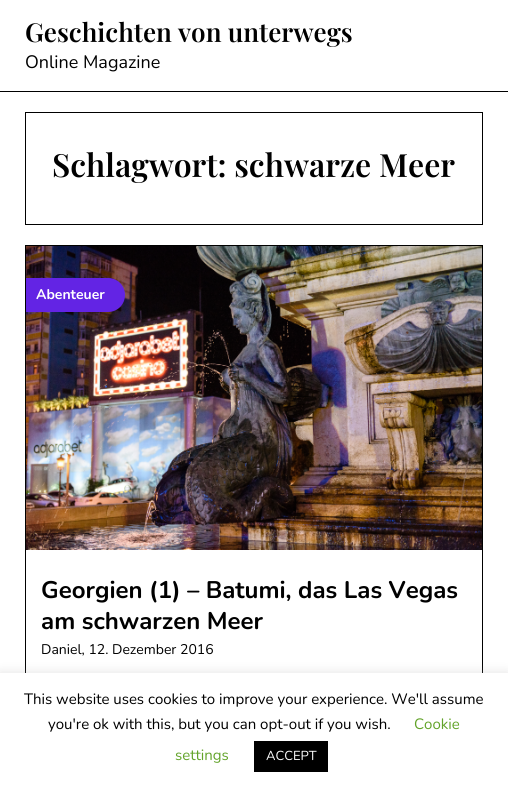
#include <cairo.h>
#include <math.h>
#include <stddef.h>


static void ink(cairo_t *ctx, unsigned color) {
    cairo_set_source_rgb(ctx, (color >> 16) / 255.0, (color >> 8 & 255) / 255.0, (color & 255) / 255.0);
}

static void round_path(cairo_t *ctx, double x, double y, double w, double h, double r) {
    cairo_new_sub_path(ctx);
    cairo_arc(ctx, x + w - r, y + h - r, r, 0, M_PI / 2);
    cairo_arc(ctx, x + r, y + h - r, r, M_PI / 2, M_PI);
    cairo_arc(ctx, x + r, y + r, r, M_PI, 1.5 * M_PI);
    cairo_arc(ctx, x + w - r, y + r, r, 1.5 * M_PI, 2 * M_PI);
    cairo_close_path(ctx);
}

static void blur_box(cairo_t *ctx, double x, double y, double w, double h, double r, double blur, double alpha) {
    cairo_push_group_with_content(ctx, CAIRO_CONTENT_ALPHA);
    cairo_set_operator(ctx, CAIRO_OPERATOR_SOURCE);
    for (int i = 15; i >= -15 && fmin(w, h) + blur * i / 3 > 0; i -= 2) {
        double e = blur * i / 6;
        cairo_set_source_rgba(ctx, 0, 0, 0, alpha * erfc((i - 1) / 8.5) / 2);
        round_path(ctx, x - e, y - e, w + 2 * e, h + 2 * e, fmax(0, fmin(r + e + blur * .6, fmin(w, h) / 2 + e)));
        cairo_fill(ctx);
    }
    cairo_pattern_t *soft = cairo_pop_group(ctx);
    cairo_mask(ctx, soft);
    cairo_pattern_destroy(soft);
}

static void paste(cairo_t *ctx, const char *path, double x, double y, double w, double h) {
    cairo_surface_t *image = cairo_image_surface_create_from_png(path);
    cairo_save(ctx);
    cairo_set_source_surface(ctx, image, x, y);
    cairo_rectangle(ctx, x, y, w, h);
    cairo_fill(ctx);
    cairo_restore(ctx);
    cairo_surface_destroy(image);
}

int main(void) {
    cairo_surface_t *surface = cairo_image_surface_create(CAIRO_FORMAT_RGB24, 508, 789);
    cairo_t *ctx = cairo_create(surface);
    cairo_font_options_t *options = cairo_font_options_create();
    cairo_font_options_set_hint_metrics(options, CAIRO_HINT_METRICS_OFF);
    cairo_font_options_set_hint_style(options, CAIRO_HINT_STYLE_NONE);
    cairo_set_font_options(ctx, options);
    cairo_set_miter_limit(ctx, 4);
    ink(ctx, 0xFFFFFF);
    cairo_paint(ctx);
    ink(ctx, 0x000000);
    cairo_rectangle(ctx, 0, 91, 508, 1);
    cairo_fill(ctx);
    cairo_select_font_face(ctx, "Playfair Display SemiBold", CAIRO_FONT_SLANT_NORMAL, CAIRO_FONT_WEIGHT_NORMAL);
    cairo_set_font_size(ctx, 26);
    cairo_move_to(ctx, 25, 42);
    cairo_show_text(ctx, "Geschichten von unterwegs");
    cairo_select_font_face(ctx, "Nunito", CAIRO_FONT_SLANT_NORMAL, CAIRO_FONT_WEIGHT_NORMAL);
    cairo_set_font_size(ctx, 18);
    cairo_move_to(ctx, 25, 68);
    cairo_show_text(ctx, "Online Magazine");
    cairo_rectangle(ctx, 25.5, 112.5, 457, 112);
    cairo_set_line_width(ctx, 1);
    cairo_stroke(ctx);
    cairo_select_font_face(ctx, "Playfair Display SemiBold", CAIRO_FONT_SLANT_NORMAL, CAIRO_FONT_WEIGHT_NORMAL);
    cairo_set_font_size(ctx, 32);
    cairo_move_to(ctx, 52, 177);
    cairo_show_text(ctx, "Schlagwort: schwarze Meer");
    cairo_rectangle(ctx, 25.5, 245.5, 457, 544);
    cairo_stroke(ctx);
    paste(ctx, "media/1.png", 26, 246, 456, 304);
    ink(ctx, 0x6324E4);
    cairo_new_path(ctx);
    cairo_move_to(ctx, 26, 278);
    cairo_line_to(ctx, 108, 278);
    cairo_curve_to(ctx, 117.5, 278, 125, 285.5, 125, 295);
    cairo_curve_to(ctx, 125, 304.5, 117.5, 312, 108, 312);
    cairo_line_to(ctx, 26, 312);
    cairo_close_path(ctx);
    cairo_fill(ctx);
    cairo_select_font_face(ctx, "Nunito", CAIRO_FONT_SLANT_NORMAL, CAIRO_FONT_WEIGHT_BOLD);
    cairo_set_font_size(ctx, 14);
    ink(ctx, 0xFFFFFF);
    cairo_move_to(ctx, 36, 299);
    cairo_show_text(ctx, "Abenteuer");
    cairo_set_font_size(ctx, 24);
    ink(ctx, 0x000000);
    cairo_move_to(ctx, 41, 598);
    cairo_show_text(ctx, "Georgien (1) – Batumi, das Las Vegas");
    cairo_move_to(ctx, 41, 629);
    cairo_show_text(ctx, "am schwarzen Meer");
    cairo_select_font_face(ctx, "Nunito", CAIRO_FONT_SLANT_NORMAL, CAIRO_FONT_WEIGHT_NORMAL);
    cairo_set_font_size(ctx, 14);
    cairo_move_to(ctx, 41, 654);
    cairo_show_text(ctx, "Daniel, 12. Dezember 2016");
    ink(ctx, 0xACABAB);
    blur_box(ctx, 0, 672, 508, 116, 0, 5, 0.3);
    ink(ctx, 0xFFFFFF);
    cairo_rectangle(ctx, 0, 673, 508, 116);
    cairo_fill(ctx);
    cairo_set_font_size(ctx, 15);
    ink(ctx, 0x000000);
    cairo_move_to(ctx, 24, 704);
    cairo_show_text(ctx, "This website uses cookies to improve your experience. We'll assume");
    cairo_move_to(ctx, 48, 729);
    cairo_show_text(ctx, "you're ok with this, but you can opt-out if you wish.");
    ink(ctx, 0x62A329);
    cairo_move_to(ctx, 414, 729);
    cairo_show_text(ctx, "Cookie");
    cairo_move_to(ctx, 175, 760);
    cairo_show_text(ctx, "settings");
    ink(ctx, 0x000000);
    cairo_rectangle(ctx, 254, 741, 74, 31);
    cairo_fill(ctx);
    cairo_set_font_size(ctx, 13);
    ink(ctx, 0xFFFFFF);
    cairo_move_to(ctx, 266, 760);
    cairo_show_text(ctx, "ACCEPT");
    cairo_surface_write_to_png(surface, "image.png");
    cairo_font_options_destroy(options);
    cairo_destroy(ctx);
    cairo_surface_destroy(surface);
    return 0;
}
